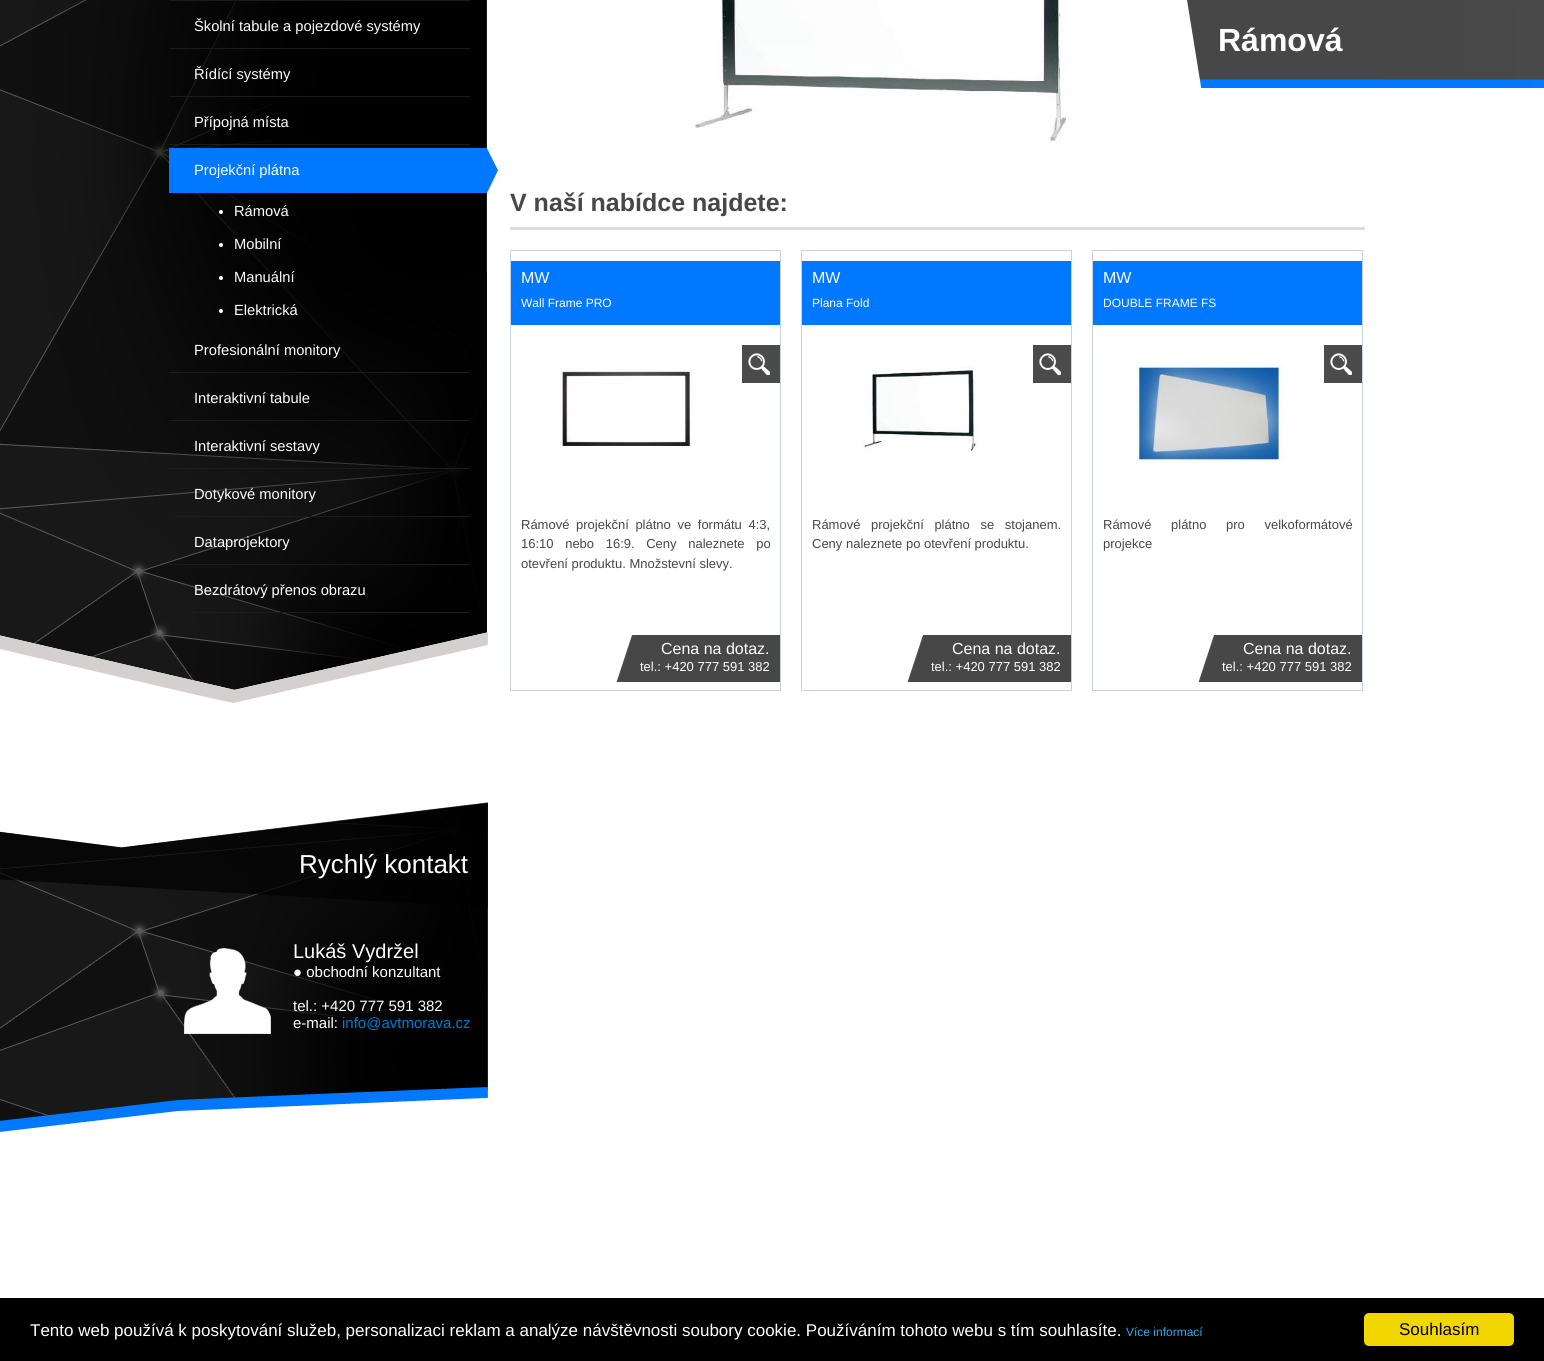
#include <cairo.h>
#include <math.h>
#include <stddef.h>

typedef struct { double x, y; const char *s; } line_t;

static void ink(cairo_t *ctx, unsigned color) {
    cairo_set_source_rgb(ctx, (color >> 16) / 255.0, (color >> 8 & 255) / 255.0, (color & 255) / 255.0);
}

static void write_spaced(cairo_t *ctx, double x, double y, const char *s, double letter, double word) {
    cairo_move_to(ctx, x, y);
    while (*s) {
        char ch[5] = {0};
        int n = 0;
        do ch[n++] = *s++; while ((*s & 0xC0) == 0x80);
        cairo_show_text(ctx, ch);
        cairo_rel_move_to(ctx, letter + word * (*ch == ' '), 0);
    }
}

static void round_path(cairo_t *ctx, double x, double y, double w, double h, double r) {
    cairo_new_sub_path(ctx);
    cairo_arc(ctx, x + w - r, y + h - r, r, 0, M_PI / 2);
    cairo_arc(ctx, x + r, y + h - r, r, M_PI / 2, M_PI);
    cairo_arc(ctx, x + r, y + r, r, M_PI, 1.5 * M_PI);
    cairo_arc(ctx, x + w - r, y + r, r, 1.5 * M_PI, 2 * M_PI);
    cairo_close_path(ctx);
}

static void paste(cairo_t *ctx, const char *path, double x, double y, double w, double h) {
    cairo_surface_t *image = cairo_image_surface_create_from_png(path);
    cairo_save(ctx);
    cairo_set_source_surface(ctx, image, x, y);
    cairo_rectangle(ctx, x, y, w, h);
    cairo_fill(ctx);
    cairo_restore(ctx);
    cairo_surface_destroy(image);
}

int main(void) {
    cairo_surface_t *surface = cairo_image_surface_create(CAIRO_FORMAT_RGB24, 1544, 1361);
    cairo_t *ctx = cairo_create(surface);
    cairo_font_options_t *options = cairo_font_options_create();
    cairo_font_options_set_hint_metrics(options, CAIRO_HINT_METRICS_OFF);
    cairo_font_options_set_hint_style(options, CAIRO_HINT_STYLE_NONE);
    cairo_set_font_options(ctx, options);
    cairo_set_miter_limit(ctx, 4);
    ink(ctx, 0xFFFFFF);
    cairo_paint(ctx);
    paste(ctx, "media/1.png", 1382, 0, 162, 88);
    paste(ctx, "media/2.png", 0, 0, 487, 690);
    ink(ctx, 0x1C1C1C);
    cairo_rectangle(ctx, 169, 0, 301, 1);
    cairo_fill(ctx);
    cairo_rectangle(ctx, 169, 48, 301, 1);
    cairo_fill(ctx);
    cairo_select_font_face(ctx, "Liberation Sans", CAIRO_FONT_SLANT_NORMAL, CAIRO_FONT_WEIGHT_NORMAL);
    cairo_set_font_size(ctx, 14.7);
    ink(ctx, 0xFFFFFF);
    cairo_move_to(ctx, 194, 31);
    cairo_show_text(ctx, "Školní tabule a pojezdové systémy");
    ink(ctx, 0x1C1C1C);
    cairo_rectangle(ctx, 169, 96, 301, 1);
    cairo_fill(ctx);
    ink(ctx, 0xFFFFFF);
    cairo_move_to(ctx, 194, 79);
    cairo_show_text(ctx, "Řídící systémy");
    ink(ctx, 0x1C1C1C);
    cairo_rectangle(ctx, 169, 144, 301, 1);
    cairo_fill(ctx);
    ink(ctx, 0xFFFFFF);
    cairo_move_to(ctx, 194, 127);
    cairo_show_text(ctx, "Přípojná místa");
    paste(ctx, "media/3.png", 169, 148, 329, 45);
    cairo_move_to(ctx, 194, 175);
    cairo_show_text(ctx, "Projekční plátna");
    cairo_new_path(ctx);
    cairo_arc(ctx, 221, 212, 2, 0, 2 * M_PI);
    cairo_fill(ctx);
    cairo_move_to(ctx, 234, 216);
    cairo_show_text(ctx, "Rámová");
    cairo_new_path(ctx);
    cairo_arc(ctx, 221, 245, 2, 0, 2 * M_PI);
    cairo_fill(ctx);
    cairo_move_to(ctx, 234, 249);
    cairo_show_text(ctx, "Mobilní");
    cairo_new_path(ctx);
    cairo_arc(ctx, 221, 278, 2, 0, 2 * M_PI);
    cairo_fill(ctx);
    cairo_move_to(ctx, 234, 282);
    cairo_show_text(ctx, "Manuální");
    cairo_new_path(ctx);
    cairo_arc(ctx, 221, 311, 2, 0, 2 * M_PI);
    cairo_fill(ctx);
    cairo_move_to(ctx, 234, 315);
    cairo_show_text(ctx, "Elektrická");
    ink(ctx, 0x1C1C1C);
    cairo_rectangle(ctx, 169, 372, 301, 1);
    cairo_fill(ctx);
    ink(ctx, 0xFFFFFF);
    cairo_move_to(ctx, 194, 355);
    cairo_show_text(ctx, "Profesionální monitory");
    ink(ctx, 0x1C1C1C);
    cairo_rectangle(ctx, 169, 420, 301, 1);
    cairo_fill(ctx);
    ink(ctx, 0xFFFFFF);
    cairo_move_to(ctx, 194, 403);
    cairo_show_text(ctx, "Interaktivní tabule");
    ink(ctx, 0x1C1C1C);
    cairo_rectangle(ctx, 169, 468, 301, 1);
    cairo_fill(ctx);
    ink(ctx, 0xFFFFFF);
    cairo_move_to(ctx, 194, 451);
    cairo_show_text(ctx, "Interaktivní sestavy");
    ink(ctx, 0x1C1C1C);
    cairo_rectangle(ctx, 169, 516, 301, 1);
    cairo_fill(ctx);
    ink(ctx, 0xFFFFFF);
    cairo_move_to(ctx, 194, 499);
    cairo_show_text(ctx, "Dotykové monitory");
    ink(ctx, 0x1C1C1C);
    cairo_rectangle(ctx, 169, 564, 301, 1);
    cairo_fill(ctx);
    ink(ctx, 0xFFFFFF);
    cairo_move_to(ctx, 194, 547);
    cairo_show_text(ctx, "Dataprojektory");
    ink(ctx, 0x1C1C1C);
    cairo_rectangle(ctx, 169, 612, 301, 1);
    cairo_fill(ctx);
    ink(ctx, 0xFFFFFF);
    cairo_move_to(ctx, 194, 595);
    cairo_show_text(ctx, "Bezdrátový přenos obrazu");
    paste(ctx, "media/4.png", 694, 0, 688, 146);
    paste(ctx, "media/5.png", 694, 22, 376, 124);
    paste(ctx, "media/6.png", 1187, 0, 195, 88);
    cairo_select_font_face(ctx, "Liberation Sans", CAIRO_FONT_SLANT_NORMAL, CAIRO_FONT_WEIGHT_BOLD);
    cairo_set_font_size(ctx, 32);
    cairo_move_to(ctx, 1218, 51);
    cairo_show_text(ctx, "Rámová");
    ink(ctx, 0xDEDBDB);
    cairo_rectangle(ctx, 510, 227, 855, 3);
    cairo_fill(ctx);
    cairo_set_font_size(ctx, 25);
    ink(ctx, 0x474747);
    cairo_move_to(ctx, 510, 211);
    cairo_show_text(ctx, "V naší nabídce najdete:");
    cairo_rectangle(ctx, 510.5, 250.5, 270, 440);
    ink(ctx, 0xCBD2DD);
    cairo_set_line_width(ctx, 1);
    cairo_stroke(ctx);
    ink(ctx, 0x0078FF);
    cairo_rectangle(ctx, 511, 261, 269, 64);
    cairo_fill(ctx);
    cairo_select_font_face(ctx, "Liberation Sans", CAIRO_FONT_SLANT_NORMAL, CAIRO_FONT_WEIGHT_NORMAL);
    cairo_set_font_size(ctx, 16);
    ink(ctx, 0xFFFFFF);
    cairo_move_to(ctx, 521, 283);
    cairo_show_text(ctx, "MW");
    cairo_set_font_size(ctx, 12);
    cairo_move_to(ctx, 521, 307);
    cairo_show_text(ctx, "Wall Frame PRO");
    paste(ctx, "media/7.png", 559, 366, 134, 81);
    ink(ctx, 0x4B4B4B);
    cairo_rectangle(ctx, 742, 345, 38, 38);
    cairo_fill(ctx);
    paste(ctx, "media/8.png", 748, 353, 22, 22);
    cairo_set_font_size(ctx, 13);
    ink(ctx, 0x474747);
    write_spaced(ctx, 521, 529, "Rámové projekční plátno ve formátu 4:3,", 0, 3);
    write_spaced(ctx, 521, 548, "16:10 nebo 16:9. Ceny naleznete po", 0, 8);
    cairo_move_to(ctx, 521, 568);
    cairo_show_text(ctx, "otevření produktu. Množstevní slevy.");
    paste(ctx, "media/9.png", 616, 635, 164, 47);
    cairo_set_font_size(ctx, 16);
    ink(ctx, 0xFFFFFF);
    cairo_move_to(ctx, 661, 654);
    cairo_show_text(ctx, "Cena na dotaz.");
    cairo_set_font_size(ctx, 13);
    cairo_move_to(ctx, 640, 671);
    cairo_show_text(ctx, "tel.: +420 777 591 382");
    cairo_rectangle(ctx, 801.5, 250.5, 270, 440);
    ink(ctx, 0xCBD2DD);
    cairo_stroke(ctx);
    ink(ctx, 0x0078FF);
    cairo_rectangle(ctx, 802, 261, 269, 64);
    cairo_fill(ctx);
    cairo_set_font_size(ctx, 16);
    ink(ctx, 0xFFFFFF);
    cairo_move_to(ctx, 812, 283);
    cairo_show_text(ctx, "MW");
    cairo_set_font_size(ctx, 12);
    cairo_move_to(ctx, 812, 307);
    cairo_show_text(ctx, "Plana Fold");
    paste(ctx, "media/10.png", 861, 366, 118, 86);
    ink(ctx, 0x4B4B4B);
    cairo_rectangle(ctx, 1033, 345, 38, 38);
    cairo_fill(ctx);
    paste(ctx, "media/8.png", 1039, 353, 22, 22);
    cairo_set_font_size(ctx, 13);
    ink(ctx, 0x474747);
    write_spaced(ctx, 812, 529, "Rámové projekční plátno se stojanem.", 0, 7);
    cairo_move_to(ctx, 812, 548);
    cairo_show_text(ctx, "Ceny naleznete po otevření produktu.");
    paste(ctx, "media/9.png", 907, 635, 164, 47);
    cairo_set_font_size(ctx, 16);
    ink(ctx, 0xFFFFFF);
    cairo_move_to(ctx, 952, 654);
    cairo_show_text(ctx, "Cena na dotaz.");
    cairo_set_font_size(ctx, 13);
    cairo_move_to(ctx, 931, 671);
    cairo_show_text(ctx, "tel.: +420 777 591 382");
    cairo_rectangle(ctx, 1092.5, 250.5, 270, 440);
    ink(ctx, 0xCBD2DD);
    cairo_stroke(ctx);
    ink(ctx, 0x0078FF);
    cairo_rectangle(ctx, 1093, 261, 269, 64);
    cairo_fill(ctx);
    cairo_set_font_size(ctx, 16);
    ink(ctx, 0xFFFFFF);
    cairo_move_to(ctx, 1103, 283);
    cairo_show_text(ctx, "MW");
    cairo_set_font_size(ctx, 12);
    cairo_move_to(ctx, 1103, 307);
    cairo_show_text(ctx, "DOUBLE FRAME FS");
    paste(ctx, "media/11.png", 1135, 365, 151, 98);
    ink(ctx, 0x4B4B4B);
    cairo_rectangle(ctx, 1324, 345, 38, 38);
    cairo_fill(ctx);
    paste(ctx, "media/8.png", 1330, 353, 22, 22);
    cairo_set_font_size(ctx, 13);
    ink(ctx, 0x474747);
    write_spaced(ctx, 1103, 529, "Rámové plátno pro velkoformátové", 0, 16);
    cairo_move_to(ctx, 1103, 548);
    cairo_show_text(ctx, "projekce");
    paste(ctx, "media/9.png", 1198, 635, 164, 47);
    cairo_set_font_size(ctx, 16);
    ink(ctx, 0xFFFFFF);
    cairo_move_to(ctx, 1243, 654);
    cairo_show_text(ctx, "Cena na dotaz.");
    cairo_set_font_size(ctx, 13);
    cairo_move_to(ctx, 1222, 671);
    cairo_show_text(ctx, "tel.: +420 777 591 382");
    paste(ctx, "media/12.png", 0, 632, 488, 500);
    cairo_set_font_size(ctx, 26);
    cairo_move_to(ctx, 299, 873);
    cairo_show_text(ctx, "Rychlý kontakt");
    cairo_set_font_size(ctx, 20);
    cairo_move_to(ctx, 293, 958);
    cairo_show_text(ctx, "Lukáš Vydržel");
    cairo_set_font_size(ctx, 15);
    {
        static const line_t items[] = {
            {293, 977, "● obchodní konzultant"},
            {293, 1011, "tel.: +420 777 591 382"},
            {293, 1028, "e-mail:"},
        };
        for (size_t i = 0; i < sizeof items / sizeof *items; i++) {
            cairo_move_to(ctx, items[i].x, items[i].y);
            cairo_show_text(ctx, items[i].s);
        }
    }
    ink(ctx, 0x017BCD);
    cairo_move_to(ctx, 342, 1028);
    cairo_show_text(ctx, "info@avtmorava.cz");
    ink(ctx, 0x000000);
    cairo_rectangle(ctx, 0, 1298, 1544, 63);
    cairo_fill(ctx);
    cairo_set_font_size(ctx, 17);
    ink(ctx, 0xFFFFFF);
    cairo_move_to(ctx, 30, 1336);
    cairo_show_text(ctx, "Tento web používá k poskytování služeb, personalizaci reklam a analýze návštěvnosti soubory cookie. Používáním tohoto webu s tím souhlasíte.");
    cairo_set_font_size(ctx, 12);
    ink(ctx, 0x31A8F0);
    cairo_move_to(ctx, 1126, 1336);
    cairo_show_text(ctx, "Více informací");
    ink(ctx, 0xF1D600);
    round_path(ctx, 1364, 1313, 150, 33, 5);
    cairo_fill(ctx);
    cairo_set_font_size(ctx, 17);
    ink(ctx, 0x000000);
    cairo_move_to(ctx, 1399, 1335);
    cairo_show_text(ctx, "Souhlasím");
    cairo_surface_write_to_png(surface, "image.png");
    cairo_font_options_destroy(options);
    cairo_destroy(ctx);
    cairo_surface_destroy(surface);
    return 0;
}
